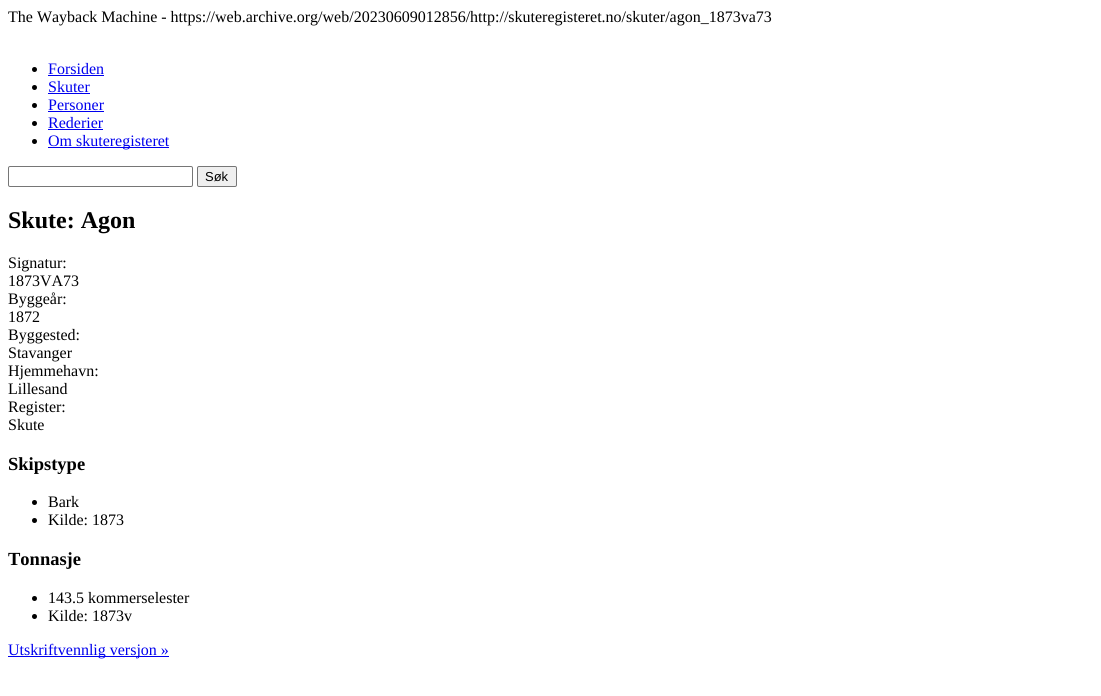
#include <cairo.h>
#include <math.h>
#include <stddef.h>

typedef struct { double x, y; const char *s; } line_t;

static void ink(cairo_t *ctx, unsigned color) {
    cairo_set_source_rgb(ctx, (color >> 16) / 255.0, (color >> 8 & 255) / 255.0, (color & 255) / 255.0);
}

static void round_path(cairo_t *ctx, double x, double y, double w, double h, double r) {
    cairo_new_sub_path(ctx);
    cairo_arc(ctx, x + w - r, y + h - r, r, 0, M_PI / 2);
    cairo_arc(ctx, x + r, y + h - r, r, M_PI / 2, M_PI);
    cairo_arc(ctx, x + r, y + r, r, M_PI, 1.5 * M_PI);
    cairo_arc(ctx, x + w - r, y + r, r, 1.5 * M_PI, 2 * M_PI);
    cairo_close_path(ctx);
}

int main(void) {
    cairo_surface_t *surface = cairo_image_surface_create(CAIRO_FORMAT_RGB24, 1101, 696);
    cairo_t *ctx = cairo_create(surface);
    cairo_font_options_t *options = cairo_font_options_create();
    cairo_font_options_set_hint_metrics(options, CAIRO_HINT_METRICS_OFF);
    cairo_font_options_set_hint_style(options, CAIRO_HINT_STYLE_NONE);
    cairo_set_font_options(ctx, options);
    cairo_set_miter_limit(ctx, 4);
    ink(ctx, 0xFFFFFF);
    cairo_paint(ctx);
    cairo_select_font_face(ctx, "Liberation Serif", CAIRO_FONT_SLANT_NORMAL, CAIRO_FONT_WEIGHT_NORMAL);
    cairo_set_font_size(ctx, 16);
    ink(ctx, 0x000000);
    cairo_move_to(ctx, 8, 22);
    cairo_show_text(ctx, "The Wayback Machine - https://web.archive.org/web/20230609012856/http://skuteregisteret.no/skuter/agon_1873va73");
    cairo_new_path(ctx);
    cairo_arc(ctx, 34.5, 69.5, 2.5, 0, 2 * M_PI);
    cairo_fill(ctx);
    ink(ctx, 0x0000EE);
    cairo_move_to(ctx, 48, 74);
    cairo_show_text(ctx, "Forsiden");
    cairo_rectangle(ctx, 48, 75, 56, 1);
    cairo_fill(ctx);
    ink(ctx, 0x000000);
    cairo_arc(ctx, 34.5, 87.5, 2.5, 0, 2 * M_PI);
    cairo_fill(ctx);
    ink(ctx, 0x0000EE);
    cairo_move_to(ctx, 48, 92);
    cairo_show_text(ctx, "Skuter");
    cairo_rectangle(ctx, 48, 93, 42, 1);
    cairo_fill(ctx);
    ink(ctx, 0x000000);
    cairo_arc(ctx, 34.5, 105.5, 2.5, 0, 2 * M_PI);
    cairo_fill(ctx);
    ink(ctx, 0x0000EE);
    cairo_move_to(ctx, 48, 110);
    cairo_show_text(ctx, "Personer");
    cairo_rectangle(ctx, 48, 111, 56, 1);
    cairo_fill(ctx);
    ink(ctx, 0x000000);
    cairo_arc(ctx, 34.5, 123.5, 2.5, 0, 2 * M_PI);
    cairo_fill(ctx);
    ink(ctx, 0x0000EE);
    cairo_move_to(ctx, 48, 128);
    cairo_show_text(ctx, "Rederier");
    cairo_rectangle(ctx, 48, 129, 55, 1);
    cairo_fill(ctx);
    ink(ctx, 0x000000);
    cairo_arc(ctx, 34.5, 141.5, 2.5, 0, 2 * M_PI);
    cairo_fill(ctx);
    ink(ctx, 0x0000EE);
    cairo_rectangle(ctx, 48, 147, 121, 1);
    cairo_fill(ctx);
    cairo_move_to(ctx, 48, 146);
    cairo_show_text(ctx, "Om skuteregisteret");
    round_path(ctx, 8.5, 166.5, 184, 20, 1.5);
    ink(ctx, 0x767676);
    cairo_set_line_width(ctx, 1);
    cairo_stroke(ctx);
    ink(ctx, 0xEFEFEF);
    round_path(ctx, 197.5, 166.5, 39, 20, 1.5);
    cairo_fill_preserve(ctx);
    ink(ctx, 0x767676);
    cairo_stroke(ctx);
    cairo_select_font_face(ctx, "Liberation Sans", CAIRO_FONT_SLANT_NORMAL, CAIRO_FONT_WEIGHT_NORMAL);
    cairo_set_font_size(ctx, 13);
    ink(ctx, 0x000000);
    cairo_move_to(ctx, 205, 181);
    cairo_show_text(ctx, "Søk");
    cairo_select_font_face(ctx, "Liberation Serif", CAIRO_FONT_SLANT_NORMAL, CAIRO_FONT_WEIGHT_BOLD);
    cairo_set_font_size(ctx, 24);
    cairo_move_to(ctx, 8, 228);
    cairo_show_text(ctx, "Skute: Agon");
    cairo_select_font_face(ctx, "Liberation Serif", CAIRO_FONT_SLANT_NORMAL, CAIRO_FONT_WEIGHT_NORMAL);
    cairo_set_font_size(ctx, 16);
    {
        static const line_t items[] = {
            {8, 268, "Signatur:"},
            {8, 286, "1873VA73"},
            {8, 304, "Byggeår:"},
            {8, 322, "1872"},
            {8, 340, "Byggested:"},
            {8, 358, "Stavanger"},
            {8, 376, "Hjemmehavn:"},
            {8, 394, "Lillesand"},
            {8, 412, "Register:"},
            {8, 430, "Skute"},
        };
        for (size_t i = 0; i < sizeof items / sizeof *items; i++) {
            cairo_move_to(ctx, items[i].x, items[i].y);
            cairo_show_text(ctx, items[i].s);
        }
    }
    cairo_select_font_face(ctx, "Liberation Serif", CAIRO_FONT_SLANT_NORMAL, CAIRO_FONT_WEIGHT_BOLD);
    cairo_set_font_size(ctx, 18.5);
    cairo_move_to(ctx, 8, 470);
    cairo_show_text(ctx, "Skipstype");
    cairo_new_path(ctx);
    cairo_arc(ctx, 34.5, 502.5, 2.5, 0, 2 * M_PI);
    cairo_fill(ctx);
    cairo_select_font_face(ctx, "Liberation Serif", CAIRO_FONT_SLANT_NORMAL, CAIRO_FONT_WEIGHT_NORMAL);
    cairo_set_font_size(ctx, 16);
    cairo_move_to(ctx, 48, 507);
    cairo_show_text(ctx, "Bark");
    cairo_new_path(ctx);
    cairo_arc(ctx, 34.5, 520.5, 2.5, 0, 2 * M_PI);
    cairo_fill(ctx);
    cairo_move_to(ctx, 48, 525);
    cairo_show_text(ctx, "Kilde: 1873");
    cairo_select_font_face(ctx, "Liberation Serif", CAIRO_FONT_SLANT_NORMAL, CAIRO_FONT_WEIGHT_BOLD);
    cairo_set_font_size(ctx, 18.5);
    cairo_move_to(ctx, 8, 565);
    cairo_show_text(ctx, "Tonnasje");
    cairo_new_path(ctx);
    cairo_arc(ctx, 34.5, 598.5, 2.5, 0, 2 * M_PI);
    cairo_fill(ctx);
    cairo_select_font_face(ctx, "Liberation Serif", CAIRO_FONT_SLANT_NORMAL, CAIRO_FONT_WEIGHT_NORMAL);
    cairo_set_font_size(ctx, 16);
    cairo_move_to(ctx, 48, 603);
    cairo_show_text(ctx, "143.5 kommerselester");
    cairo_new_path(ctx);
    cairo_arc(ctx, 34.5, 616.5, 2.5, 0, 2 * M_PI);
    cairo_fill(ctx);
    cairo_move_to(ctx, 48, 621);
    cairo_show_text(ctx, "Kilde: 1873v");
    ink(ctx, 0x0000EE);
    cairo_rectangle(ctx, 8, 656, 161, 1);
    cairo_fill(ctx);
    cairo_move_to(ctx, 8, 655);
    cairo_show_text(ctx, "Utskriftvennlig versjon »");
    cairo_surface_write_to_png(surface, "image.png");
    cairo_font_options_destroy(options);
    cairo_destroy(ctx);
    cairo_surface_destroy(surface);
    return 0;
}
